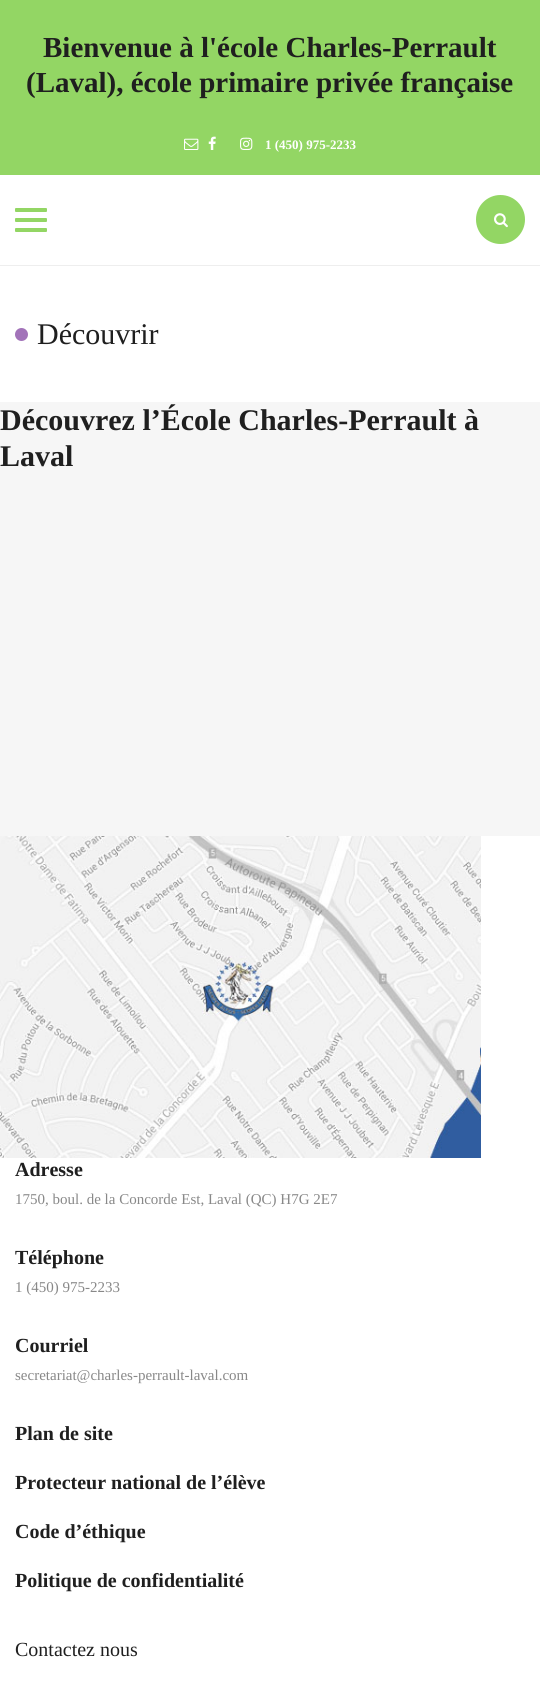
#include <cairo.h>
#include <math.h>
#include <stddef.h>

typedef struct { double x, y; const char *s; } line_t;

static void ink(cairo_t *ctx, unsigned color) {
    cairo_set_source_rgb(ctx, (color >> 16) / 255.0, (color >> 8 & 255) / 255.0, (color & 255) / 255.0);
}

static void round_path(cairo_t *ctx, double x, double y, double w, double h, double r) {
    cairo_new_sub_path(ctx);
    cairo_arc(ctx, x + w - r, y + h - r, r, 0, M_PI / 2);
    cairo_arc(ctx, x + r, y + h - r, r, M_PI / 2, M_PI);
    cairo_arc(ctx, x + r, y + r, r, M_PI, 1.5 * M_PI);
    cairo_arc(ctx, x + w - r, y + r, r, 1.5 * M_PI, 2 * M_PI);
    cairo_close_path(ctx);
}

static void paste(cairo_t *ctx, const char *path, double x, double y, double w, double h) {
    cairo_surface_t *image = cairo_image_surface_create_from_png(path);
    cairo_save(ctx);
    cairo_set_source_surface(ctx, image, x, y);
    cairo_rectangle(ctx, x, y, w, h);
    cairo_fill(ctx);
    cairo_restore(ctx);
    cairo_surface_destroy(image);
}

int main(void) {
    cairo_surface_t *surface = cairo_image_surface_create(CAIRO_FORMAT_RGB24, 540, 1694);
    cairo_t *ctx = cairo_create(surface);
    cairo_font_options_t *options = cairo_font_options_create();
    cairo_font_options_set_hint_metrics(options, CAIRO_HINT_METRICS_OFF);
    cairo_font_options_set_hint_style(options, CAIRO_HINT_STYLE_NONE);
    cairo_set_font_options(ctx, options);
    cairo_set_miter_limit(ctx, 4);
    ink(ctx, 0xFFFFFF);
    cairo_paint(ctx);
    ink(ctx, 0x93D664);
    cairo_rectangle(ctx, 0, 0, 540, 175);
    cairo_fill(ctx);
    cairo_select_font_face(ctx, "Liberation Serif", CAIRO_FONT_SLANT_NORMAL, CAIRO_FONT_WEIGHT_BOLD);
    cairo_set_font_size(ctx, 29);
    ink(ctx, 0x1F1F1F);
    cairo_move_to(ctx, 43, 57);
    cairo_show_text(ctx, "Bienvenue à l'école Charles-Perrault");
    cairo_move_to(ctx, 26, 92);
    cairo_show_text(ctx, "(Laval), école primaire privée française");
    paste(ctx, "media/1.png", 184, 138, 15, 12);
    paste(ctx, "media/2.png", 208, 136, 8, 14);
    paste(ctx, "media/3.png", 240, 137, 13, 13);
    cairo_set_font_size(ctx, 13);
    ink(ctx, 0xFFFFFF);
    cairo_move_to(ctx, 265, 149);
    cairo_show_text(ctx, "1 (450) 975-2233");
    ink(ctx, 0x93D664);
    round_path(ctx, 15, 208, 32, 4, 1);
    cairo_fill(ctx);
    round_path(ctx, 15, 218, 32, 4, 1);
    cairo_fill(ctx);
    round_path(ctx, 15, 228, 32, 4, 1);
    cairo_fill(ctx);
    cairo_arc(ctx, 500.5, 219.5, 24.5, 0, 2 * M_PI);
    cairo_fill(ctx);
    paste(ctx, "media/4.png", 494, 213, 14, 15);
    ink(ctx, 0xF6F6F6);
    cairo_rectangle(ctx, 0, 402, 540, 434);
    cairo_fill(ctx);
    ink(ctx, 0xEEEEEE);
    cairo_rectangle(ctx, 0, 265, 540, 1);
    cairo_fill(ctx);
    ink(ctx, 0xA273B9);
    cairo_arc(ctx, 21.5, 334.5, 6.5, 0, 2 * M_PI);
    cairo_fill(ctx);
    cairo_select_font_face(ctx, "Liberation Serif", CAIRO_FONT_SLANT_NORMAL, CAIRO_FONT_WEIGHT_NORMAL);
    cairo_set_font_size(ctx, 30);
    ink(ctx, 0x1F1F1F);
    cairo_move_to(ctx, 37, 344);
    cairo_show_text(ctx, "Découvrir");
    cairo_select_font_face(ctx, "Liberation Serif", CAIRO_FONT_SLANT_NORMAL, CAIRO_FONT_WEIGHT_BOLD);
    cairo_move_to(ctx, 0, 430);
    cairo_show_text(ctx, "Découvrez l’École Charles-Perrault à");
    cairo_move_to(ctx, 0, 466);
    cairo_show_text(ctx, "Laval");
    paste(ctx, "media/5.png", 0, 836, 481, 322);
    cairo_set_font_size(ctx, 20);
    cairo_move_to(ctx, 15, 1176);
    cairo_show_text(ctx, "Adresse");
    cairo_select_font_face(ctx, "Liberation Serif", CAIRO_FONT_SLANT_NORMAL, CAIRO_FONT_WEIGHT_NORMAL);
    cairo_set_font_size(ctx, 15);
    ink(ctx, 0x888888);
    cairo_move_to(ctx, 15, 1204);
    cairo_show_text(ctx, "1750, boul. de la Concorde Est, Laval (QC) H7G 2E7");
    cairo_select_font_face(ctx, "Liberation Serif", CAIRO_FONT_SLANT_NORMAL, CAIRO_FONT_WEIGHT_BOLD);
    cairo_set_font_size(ctx, 20);
    ink(ctx, 0x1F1F1F);
    cairo_move_to(ctx, 15, 1264);
    cairo_show_text(ctx, "Téléphone");
    cairo_select_font_face(ctx, "Liberation Serif", CAIRO_FONT_SLANT_NORMAL, CAIRO_FONT_WEIGHT_NORMAL);
    cairo_set_font_size(ctx, 15);
    ink(ctx, 0x888888);
    cairo_move_to(ctx, 15, 1292);
    cairo_show_text(ctx, "1 (450) 975-2233");
    cairo_select_font_face(ctx, "Liberation Serif", CAIRO_FONT_SLANT_NORMAL, CAIRO_FONT_WEIGHT_BOLD);
    cairo_set_font_size(ctx, 20);
    ink(ctx, 0x1F1F1F);
    cairo_move_to(ctx, 15, 1352);
    cairo_show_text(ctx, "Courriel");
    cairo_select_font_face(ctx, "Liberation Serif", CAIRO_FONT_SLANT_NORMAL, CAIRO_FONT_WEIGHT_NORMAL);
    cairo_set_font_size(ctx, 15);
    ink(ctx, 0x888888);
    cairo_move_to(ctx, 15, 1380);
    cairo_show_text(ctx, "secretariat@charles-perrault-laval.com");
    cairo_select_font_face(ctx, "Liberation Serif", CAIRO_FONT_SLANT_NORMAL, CAIRO_FONT_WEIGHT_BOLD);
    cairo_set_font_size(ctx, 20);
    ink(ctx, 0x1F1F1F);
    {
        static const line_t items[] = {
            {15, 1440, "Plan de site"},
            {15, 1489, "Protecteur national de l’élève"},
            {15, 1538, "Code d’éthique"},
            {15, 1587, "Politique de confidentialité"},
        };
        for (size_t i = 0; i < sizeof items / sizeof *items; i++) {
            cairo_move_to(ctx, items[i].x, items[i].y);
            cairo_show_text(ctx, items[i].s);
        }
    }
    cairo_select_font_face(ctx, "Liberation Serif", CAIRO_FONT_SLANT_NORMAL, CAIRO_FONT_WEIGHT_NORMAL);
    cairo_move_to(ctx, 15, 1656);
    cairo_show_text(ctx, "Contactez nous");
    cairo_surface_write_to_png(surface, "image.png");
    cairo_font_options_destroy(options);
    cairo_destroy(ctx);
    cairo_surface_destroy(surface);
    return 0;
}
